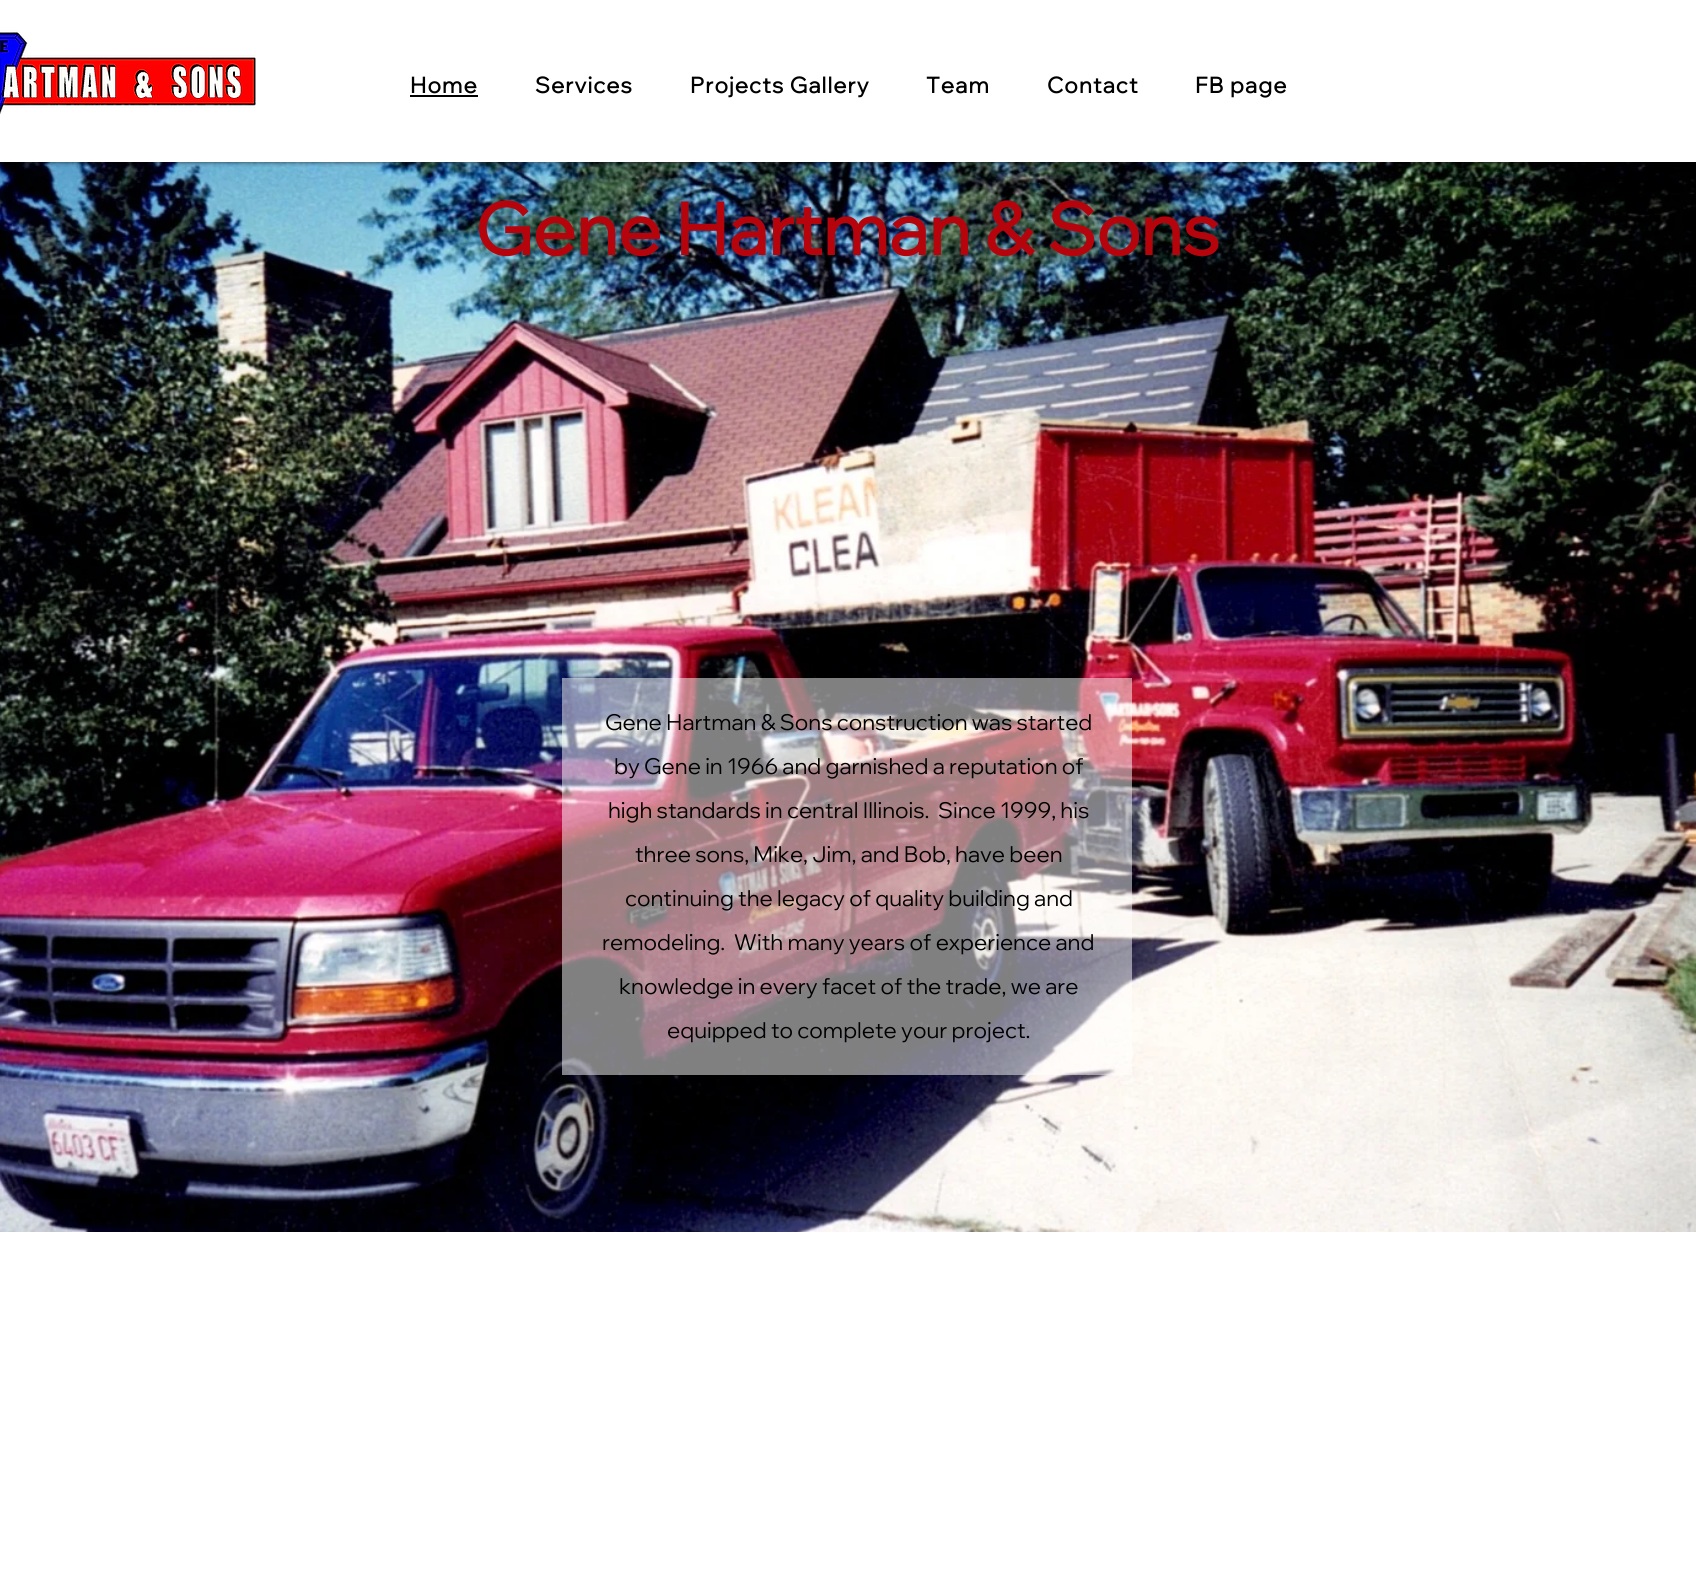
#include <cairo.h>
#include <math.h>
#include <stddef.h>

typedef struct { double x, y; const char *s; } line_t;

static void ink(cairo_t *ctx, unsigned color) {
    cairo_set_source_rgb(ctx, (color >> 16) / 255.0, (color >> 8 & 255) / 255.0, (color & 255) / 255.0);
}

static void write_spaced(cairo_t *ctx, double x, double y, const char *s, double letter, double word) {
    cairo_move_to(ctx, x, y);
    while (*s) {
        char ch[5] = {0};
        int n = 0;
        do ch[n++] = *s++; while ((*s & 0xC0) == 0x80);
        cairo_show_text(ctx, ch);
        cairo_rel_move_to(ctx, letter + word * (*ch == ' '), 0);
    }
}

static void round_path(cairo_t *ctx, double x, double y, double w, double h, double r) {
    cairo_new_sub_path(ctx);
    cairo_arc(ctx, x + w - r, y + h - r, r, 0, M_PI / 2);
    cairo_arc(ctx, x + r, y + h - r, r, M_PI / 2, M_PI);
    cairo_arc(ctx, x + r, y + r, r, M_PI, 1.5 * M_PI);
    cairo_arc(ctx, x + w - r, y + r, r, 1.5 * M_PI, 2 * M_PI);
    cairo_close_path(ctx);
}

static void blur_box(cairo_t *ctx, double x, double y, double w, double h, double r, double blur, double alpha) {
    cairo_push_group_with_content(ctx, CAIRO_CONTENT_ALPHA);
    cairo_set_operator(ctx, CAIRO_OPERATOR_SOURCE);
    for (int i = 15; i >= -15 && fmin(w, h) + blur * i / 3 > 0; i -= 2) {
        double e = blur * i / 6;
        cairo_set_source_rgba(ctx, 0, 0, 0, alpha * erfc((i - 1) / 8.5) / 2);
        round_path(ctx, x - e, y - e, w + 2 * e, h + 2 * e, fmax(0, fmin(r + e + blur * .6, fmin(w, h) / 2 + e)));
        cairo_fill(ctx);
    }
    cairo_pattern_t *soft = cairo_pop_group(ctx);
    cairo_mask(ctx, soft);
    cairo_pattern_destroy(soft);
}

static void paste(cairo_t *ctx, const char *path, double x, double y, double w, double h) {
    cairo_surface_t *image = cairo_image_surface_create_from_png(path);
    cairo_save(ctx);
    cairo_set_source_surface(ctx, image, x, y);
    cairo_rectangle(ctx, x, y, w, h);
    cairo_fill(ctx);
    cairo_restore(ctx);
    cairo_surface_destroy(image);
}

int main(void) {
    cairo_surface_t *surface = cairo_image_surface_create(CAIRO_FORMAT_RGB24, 1696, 1577);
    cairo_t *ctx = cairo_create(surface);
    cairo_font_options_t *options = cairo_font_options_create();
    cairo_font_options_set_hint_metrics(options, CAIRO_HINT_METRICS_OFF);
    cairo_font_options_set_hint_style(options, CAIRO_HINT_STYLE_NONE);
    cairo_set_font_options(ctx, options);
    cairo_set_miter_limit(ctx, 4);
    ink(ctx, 0xFFFFFF);
    cairo_paint(ctx);
    paste(ctx, "media/2.png", 0, 162, 1696, 1070);
    cairo_save(ctx);
    cairo_rectangle(ctx, 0, 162, 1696, 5);
    cairo_clip(ctx);
    ink(ctx, 0x000000);
    blur_box(ctx, 0, 0, 1696, 162, 0, 2.5, 0.7);
    cairo_restore(ctx);
    paste(ctx, "media/1.png", 0, 30, 256, 84);
    cairo_select_font_face(ctx, "Wix Madefor Display", CAIRO_FONT_SLANT_NORMAL, CAIRO_FONT_WEIGHT_BOLD);
    cairo_set_font_size(ctx, 22);
    ink(ctx, 0x000000);
    write_spaced(ctx, 410, 93, "Home", 1.1, 0);
    cairo_rectangle(ctx, 410, 95, 68, 2);
    cairo_fill(ctx);
    {
        static const line_t items[] = {
            {535, 93, "Services"},
            {690, 93, "Projects Gallery"},
            {926, 93, "Team"},
            {1047, 93, "Contact"},
            {1195, 93, "FB page"},
        };
        for (size_t i = 0; i < sizeof items / sizeof *items; i++) {
            write_spaced(ctx, items[i].x, items[i].y, items[i].s, 1.1, 0);
        }
    }
    cairo_set_font_size(ctx, 72);
    ink(ctx, 0xB6040D);
    cairo_move_to(ctx, 475, 255);
    cairo_show_text(ctx, "Gene Hartman & Sons");
    cairo_set_source_rgba(ctx, 1, 1, 1, 0.5);
    cairo_rectangle(ctx, 562, 678, 570, 397);
    cairo_fill(ctx);
    cairo_select_font_face(ctx, "Wix Madefor Display", CAIRO_FONT_SLANT_NORMAL, CAIRO_FONT_WEIGHT_NORMAL);
    cairo_set_font_size(ctx, 22);
    ink(ctx, 0x000000);
    {
        static const line_t items[] = {
            {605, 730, "Gene Hartman & Sons construction was started"},
            {614, 774, "by Gene in 1966 and garnished a reputation of"},
            {608, 818, "high standards in central Illinois.  Since 1999, his"},
            {635, 862, "three sons, Mike, Jim, and Bob, have been"},
            {625, 906, "continuing the legacy of quality building and"},
            {602, 950, "remodeling.  With many years of experience and"},
            {619, 994, "knowledge in every facet of the trade, we are"},
            {667, 1038, "equipped to complete your project."},
        };
        for (size_t i = 0; i < sizeof items / sizeof *items; i++) {
            cairo_move_to(ctx, items[i].x, items[i].y);
            cairo_show_text(ctx, items[i].s);
        }
    }
    cairo_surface_write_to_png(surface, "image.png");
    cairo_font_options_destroy(options);
    cairo_destroy(ctx);
    cairo_surface_destroy(surface);
    return 0;
}
